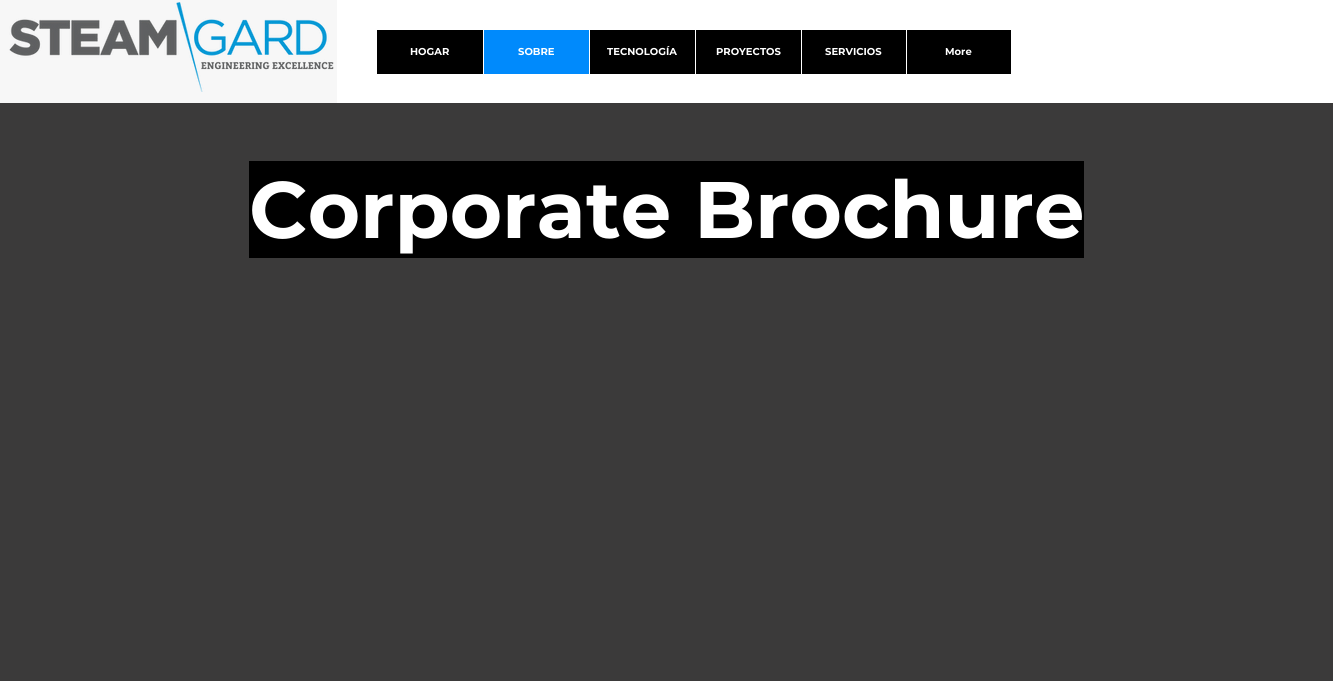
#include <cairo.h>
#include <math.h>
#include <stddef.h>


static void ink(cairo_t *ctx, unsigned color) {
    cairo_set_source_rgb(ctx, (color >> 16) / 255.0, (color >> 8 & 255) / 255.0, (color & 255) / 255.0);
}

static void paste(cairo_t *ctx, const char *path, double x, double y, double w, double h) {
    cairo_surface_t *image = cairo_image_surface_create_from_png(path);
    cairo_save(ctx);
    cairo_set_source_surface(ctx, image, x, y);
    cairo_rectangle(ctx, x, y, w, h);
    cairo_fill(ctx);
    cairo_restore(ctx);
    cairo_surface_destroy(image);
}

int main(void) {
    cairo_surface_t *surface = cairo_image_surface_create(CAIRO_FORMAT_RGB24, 1333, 681);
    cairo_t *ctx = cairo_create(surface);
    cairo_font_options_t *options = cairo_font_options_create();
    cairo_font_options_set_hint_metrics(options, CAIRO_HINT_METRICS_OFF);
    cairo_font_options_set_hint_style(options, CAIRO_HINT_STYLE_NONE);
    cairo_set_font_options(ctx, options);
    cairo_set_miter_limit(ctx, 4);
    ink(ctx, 0xFFFFFF);
    cairo_paint(ctx);
    ink(ctx, 0xF7F7F7);
    cairo_rectangle(ctx, 0, 0, 337, 103);
    cairo_fill(ctx);
    paste(ctx, "media/1.png", 9, 2, 325, 90);
    ink(ctx, 0x000000);
    cairo_rectangle(ctx, 377, 30, 634, 44);
    cairo_fill(ctx);
    cairo_select_font_face(ctx, "Montserrat", CAIRO_FONT_SLANT_NORMAL, CAIRO_FONT_WEIGHT_BOLD);
    cairo_set_font_size(ctx, 10);
    ink(ctx, 0xFFFFFF);
    cairo_move_to(ctx, 410, 55);
    cairo_show_text(ctx, "HOGAR");
    ink(ctx, 0x008AFC);
    cairo_rectangle(ctx, 484, 30, 105, 44);
    cairo_fill(ctx);
    ink(ctx, 0xFFFFFF);
    cairo_rectangle(ctx, 483, 30, 1, 44);
    cairo_fill(ctx);
    cairo_move_to(ctx, 518, 55);
    cairo_show_text(ctx, "SOBRE");
    cairo_rectangle(ctx, 589, 30, 1, 44);
    cairo_fill(ctx);
    cairo_move_to(ctx, 607, 55);
    cairo_show_text(ctx, "TECNOLOGÍA");
    cairo_rectangle(ctx, 695, 30, 1, 44);
    cairo_fill(ctx);
    cairo_move_to(ctx, 716, 55);
    cairo_show_text(ctx, "PROYECTOS");
    cairo_rectangle(ctx, 801, 30, 1, 44);
    cairo_fill(ctx);
    cairo_move_to(ctx, 825, 55);
    cairo_show_text(ctx, "SERVICIOS");
    cairo_rectangle(ctx, 906, 30, 1, 44);
    cairo_fill(ctx);
    cairo_move_to(ctx, 945, 55);
    cairo_show_text(ctx, "More");
    ink(ctx, 0x3B3A3A);
    cairo_rectangle(ctx, 0, 103, 1333, 578);
    cairo_fill(ctx);
    ink(ctx, 0x000000);
    cairo_rectangle(ctx, 249, 161, 835, 97);
    cairo_fill(ctx);
    cairo_set_font_size(ctx, 80);
    ink(ctx, 0xFFFFFF);
    cairo_move_to(ctx, 249, 238);
    cairo_show_text(ctx, "Corporate Brochure");
    cairo_surface_write_to_png(surface, "image.png");
    cairo_font_options_destroy(options);
    cairo_destroy(ctx);
    cairo_surface_destroy(surface);
    return 0;
}
